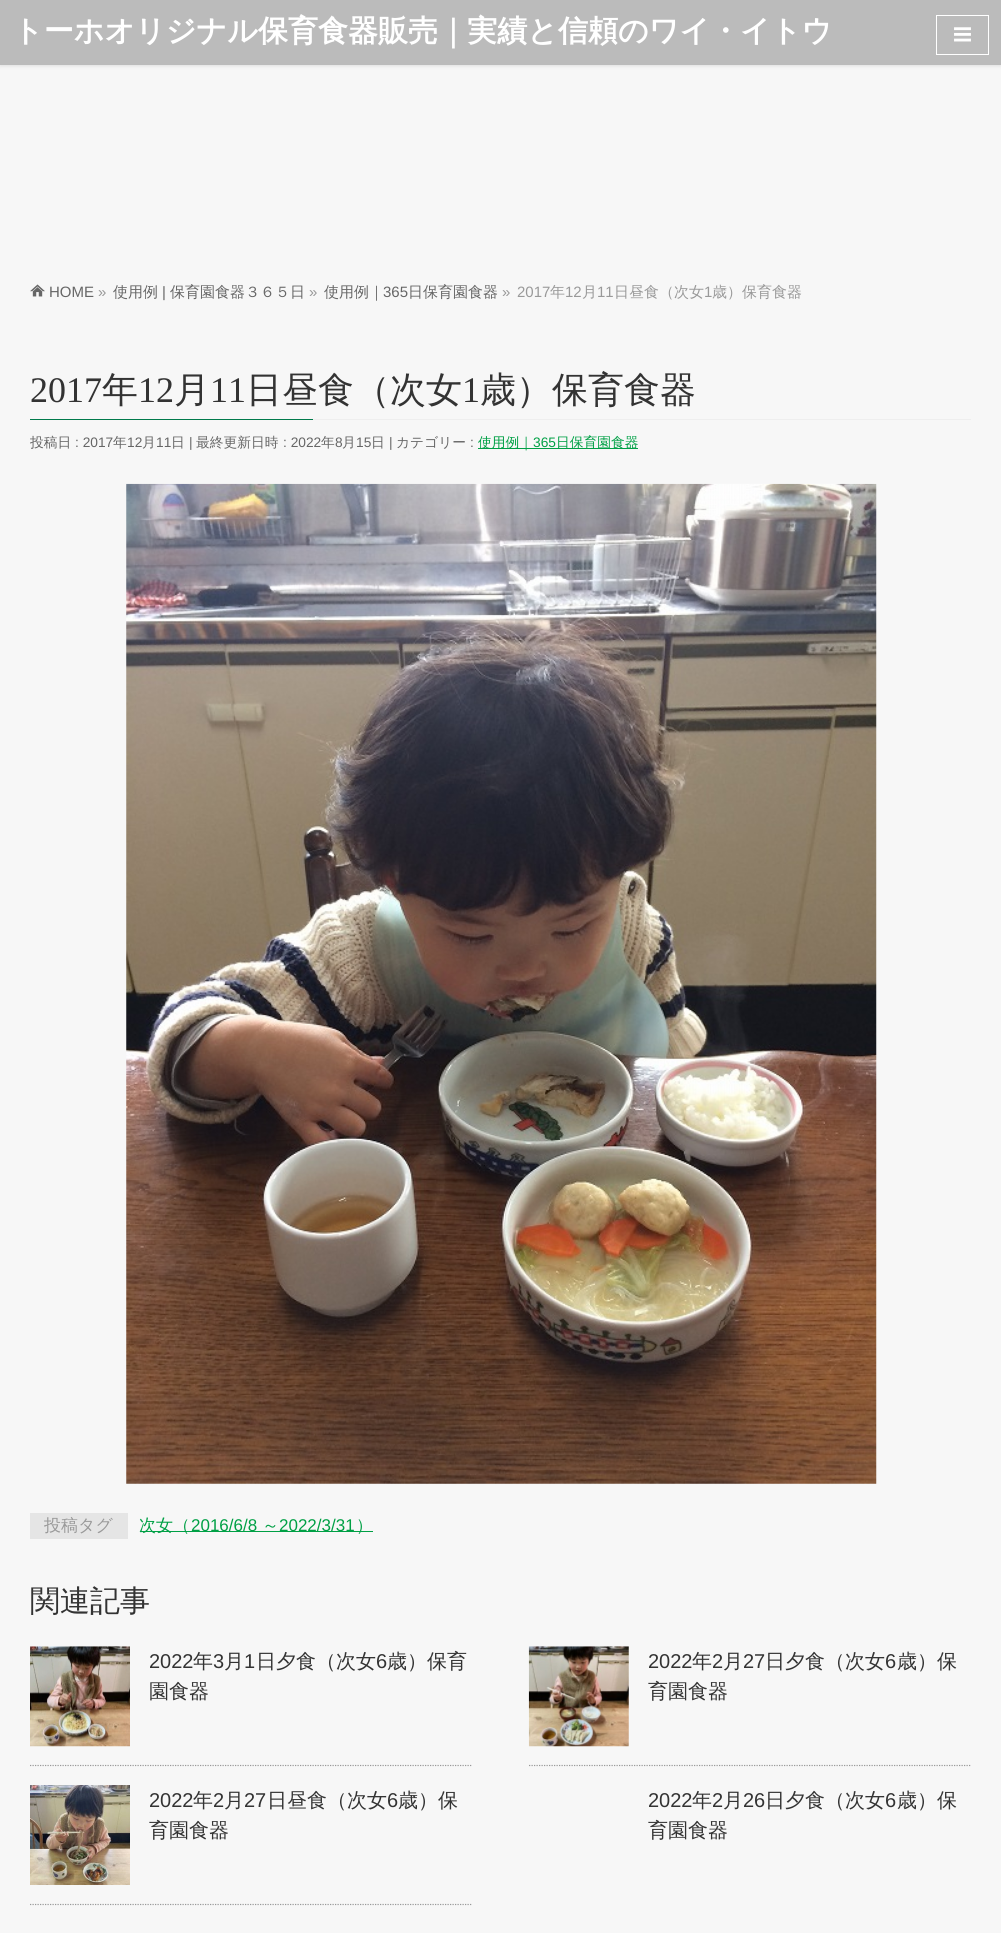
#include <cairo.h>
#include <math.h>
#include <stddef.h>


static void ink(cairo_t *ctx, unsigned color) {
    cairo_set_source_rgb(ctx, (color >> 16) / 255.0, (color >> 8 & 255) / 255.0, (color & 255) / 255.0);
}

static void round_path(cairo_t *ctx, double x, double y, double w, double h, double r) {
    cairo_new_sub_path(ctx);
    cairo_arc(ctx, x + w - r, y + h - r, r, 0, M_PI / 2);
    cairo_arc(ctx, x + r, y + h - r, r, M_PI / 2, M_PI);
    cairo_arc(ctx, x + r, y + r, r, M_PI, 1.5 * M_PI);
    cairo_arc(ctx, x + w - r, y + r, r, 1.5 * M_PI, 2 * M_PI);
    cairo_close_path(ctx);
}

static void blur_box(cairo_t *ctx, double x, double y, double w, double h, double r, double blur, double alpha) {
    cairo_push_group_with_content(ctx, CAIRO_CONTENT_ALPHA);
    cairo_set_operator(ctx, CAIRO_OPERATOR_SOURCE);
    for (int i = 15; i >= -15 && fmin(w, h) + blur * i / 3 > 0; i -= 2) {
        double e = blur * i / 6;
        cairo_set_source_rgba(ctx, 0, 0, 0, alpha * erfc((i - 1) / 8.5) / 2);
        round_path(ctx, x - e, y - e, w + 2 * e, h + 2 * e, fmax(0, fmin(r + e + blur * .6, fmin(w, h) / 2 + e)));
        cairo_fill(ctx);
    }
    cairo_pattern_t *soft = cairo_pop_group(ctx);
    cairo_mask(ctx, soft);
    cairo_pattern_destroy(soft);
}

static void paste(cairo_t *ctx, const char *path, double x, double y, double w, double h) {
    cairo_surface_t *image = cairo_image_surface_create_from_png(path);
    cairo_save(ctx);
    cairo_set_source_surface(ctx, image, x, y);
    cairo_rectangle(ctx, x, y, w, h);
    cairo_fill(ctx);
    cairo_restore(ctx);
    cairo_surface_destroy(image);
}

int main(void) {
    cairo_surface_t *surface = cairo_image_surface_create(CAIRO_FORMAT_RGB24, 1001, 1933);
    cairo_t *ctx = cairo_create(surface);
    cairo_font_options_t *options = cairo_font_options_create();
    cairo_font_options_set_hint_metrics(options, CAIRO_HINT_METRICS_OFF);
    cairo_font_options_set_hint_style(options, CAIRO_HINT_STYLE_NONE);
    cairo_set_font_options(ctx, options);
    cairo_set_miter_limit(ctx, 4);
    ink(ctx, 0xF7F7F7);
    cairo_paint(ctx);
    ink(ctx, 0x000000);
    blur_box(ctx, 0, 1, 1001, 65, 0, 2, 0.1);
    ink(ctx, 0xBBBBBB);
    cairo_rectangle(ctx, 0, 0, 1001, 65);
    cairo_fill(ctx);
    cairo_select_font_face(ctx, "WenQuanYi Zen Hei", CAIRO_FONT_SLANT_NORMAL, CAIRO_FONT_WEIGHT_BOLD);
    cairo_set_font_size(ctx, 30);
    ink(ctx, 0xFFFFFF);
    cairo_move_to(ctx, 13, 41);
    cairo_show_text(ctx, "トーホオリジナル保育食器販売｜実績と信頼のワイ・イトウ");
    cairo_rectangle(ctx, 936.5, 15.5, 52, 39);
    cairo_set_line_width(ctx, 1);
    cairo_stroke(ctx);
    paste(ctx, "media/1.png", 954, 27, 17, 15);
    paste(ctx, "media/2.png", 30, 284, 15, 13);
    cairo_select_font_face(ctx, "Liberation Sans", CAIRO_FONT_SLANT_NORMAL, CAIRO_FONT_WEIGHT_NORMAL);
    cairo_set_font_size(ctx, 15);
    ink(ctx, 0x666666);
    cairo_move_to(ctx, 49, 297);
    cairo_show_text(ctx, "HOME");
    ink(ctx, 0x999999);
    cairo_move_to(ctx, 98, 297);
    cairo_show_text(ctx, "»");
    cairo_select_font_face(ctx, "WenQuanYi Zen Hei Medium", CAIRO_FONT_SLANT_NORMAL, CAIRO_FONT_WEIGHT_NORMAL);
    ink(ctx, 0x666666);
    cairo_move_to(ctx, 113, 297);
    cairo_show_text(ctx, "使用例");
    cairo_select_font_face(ctx, "Liberation Sans", CAIRO_FONT_SLANT_NORMAL, CAIRO_FONT_WEIGHT_NORMAL);
    cairo_move_to(ctx, 162, 297);
    cairo_show_text(ctx, "|");
    cairo_select_font_face(ctx, "WenQuanYi Zen Hei Medium", CAIRO_FONT_SLANT_NORMAL, CAIRO_FONT_WEIGHT_NORMAL);
    cairo_move_to(ctx, 170, 297);
    cairo_show_text(ctx, "保育園食器３６５日");
    cairo_select_font_face(ctx, "Liberation Sans", CAIRO_FONT_SLANT_NORMAL, CAIRO_FONT_WEIGHT_NORMAL);
    ink(ctx, 0x999999);
    cairo_move_to(ctx, 309, 297);
    cairo_show_text(ctx, "»");
    cairo_select_font_face(ctx, "WenQuanYi Zen Hei Medium", CAIRO_FONT_SLANT_NORMAL, CAIRO_FONT_WEIGHT_NORMAL);
    ink(ctx, 0x666666);
    cairo_move_to(ctx, 324, 297);
    cairo_show_text(ctx, "使用例｜");
    cairo_select_font_face(ctx, "Liberation Sans", CAIRO_FONT_SLANT_NORMAL, CAIRO_FONT_WEIGHT_NORMAL);
    cairo_move_to(ctx, 383, 297);
    cairo_show_text(ctx, "365");
    cairo_select_font_face(ctx, "WenQuanYi Zen Hei Medium", CAIRO_FONT_SLANT_NORMAL, CAIRO_FONT_WEIGHT_NORMAL);
    cairo_move_to(ctx, 408, 297);
    cairo_show_text(ctx, "日保育園食器");
    cairo_select_font_face(ctx, "Liberation Sans", CAIRO_FONT_SLANT_NORMAL, CAIRO_FONT_WEIGHT_NORMAL);
    ink(ctx, 0x999999);
    cairo_move_to(ctx, 502, 297);
    cairo_show_text(ctx, "»");
    cairo_move_to(ctx, 517, 297);
    cairo_show_text(ctx, "2017");
    cairo_select_font_face(ctx, "WenQuanYi Zen Hei Medium", CAIRO_FONT_SLANT_NORMAL, CAIRO_FONT_WEIGHT_NORMAL);
    cairo_move_to(ctx, 550, 297);
    cairo_show_text(ctx, "年");
    cairo_select_font_face(ctx, "Liberation Sans", CAIRO_FONT_SLANT_NORMAL, CAIRO_FONT_WEIGHT_NORMAL);
    cairo_move_to(ctx, 565, 297);
    cairo_show_text(ctx, "12");
    cairo_select_font_face(ctx, "WenQuanYi Zen Hei Medium", CAIRO_FONT_SLANT_NORMAL, CAIRO_FONT_WEIGHT_NORMAL);
    cairo_move_to(ctx, 582, 297);
    cairo_show_text(ctx, "月");
    cairo_select_font_face(ctx, "Liberation Sans", CAIRO_FONT_SLANT_NORMAL, CAIRO_FONT_WEIGHT_NORMAL);
    cairo_move_to(ctx, 597, 297);
    cairo_show_text(ctx, "11");
    cairo_select_font_face(ctx, "WenQuanYi Zen Hei Medium", CAIRO_FONT_SLANT_NORMAL, CAIRO_FONT_WEIGHT_NORMAL);
    cairo_move_to(ctx, 614, 297);
    cairo_show_text(ctx, "日昼食（次女");
    cairo_select_font_face(ctx, "Liberation Sans", CAIRO_FONT_SLANT_NORMAL, CAIRO_FONT_WEIGHT_NORMAL);
    cairo_move_to(ctx, 704, 297);
    cairo_show_text(ctx, "1");
    cairo_select_font_face(ctx, "WenQuanYi Zen Hei Medium", CAIRO_FONT_SLANT_NORMAL, CAIRO_FONT_WEIGHT_NORMAL);
    cairo_move_to(ctx, 712, 297);
    cairo_show_text(ctx, "歳）保育食器");
    ink(ctx, 0xEEEEEE);
    cairo_rectangle(ctx, 313, 419, 658, 1);
    cairo_fill(ctx);
    cairo_select_font_face(ctx, "Liberation Serif", CAIRO_FONT_SLANT_NORMAL, CAIRO_FONT_WEIGHT_NORMAL);
    cairo_set_font_size(ctx, 36);
    ink(ctx, 0x333333);
    cairo_move_to(ctx, 30, 402);
    cairo_show_text(ctx, "2017");
    cairo_select_font_face(ctx, "WenQuanYi Zen Hei Medium", CAIRO_FONT_SLANT_NORMAL, CAIRO_FONT_WEIGHT_NORMAL);
    cairo_move_to(ctx, 102, 402);
    cairo_show_text(ctx, "年");
    cairo_select_font_face(ctx, "Liberation Serif", CAIRO_FONT_SLANT_NORMAL, CAIRO_FONT_WEIGHT_NORMAL);
    cairo_move_to(ctx, 138, 402);
    cairo_show_text(ctx, "12");
    cairo_select_font_face(ctx, "WenQuanYi Zen Hei Medium", CAIRO_FONT_SLANT_NORMAL, CAIRO_FONT_WEIGHT_NORMAL);
    cairo_move_to(ctx, 174, 402);
    cairo_show_text(ctx, "月");
    cairo_select_font_face(ctx, "Liberation Serif", CAIRO_FONT_SLANT_NORMAL, CAIRO_FONT_WEIGHT_NORMAL);
    cairo_move_to(ctx, 210, 402);
    cairo_show_text(ctx, "11");
    cairo_select_font_face(ctx, "WenQuanYi Zen Hei Medium", CAIRO_FONT_SLANT_NORMAL, CAIRO_FONT_WEIGHT_NORMAL);
    cairo_move_to(ctx, 246, 402);
    cairo_show_text(ctx, "日昼食（次女");
    cairo_select_font_face(ctx, "Liberation Serif", CAIRO_FONT_SLANT_NORMAL, CAIRO_FONT_WEIGHT_NORMAL);
    cairo_move_to(ctx, 462, 402);
    cairo_show_text(ctx, "1");
    cairo_select_font_face(ctx, "WenQuanYi Zen Hei Medium", CAIRO_FONT_SLANT_NORMAL, CAIRO_FONT_WEIGHT_NORMAL);
    cairo_move_to(ctx, 480, 402);
    cairo_show_text(ctx, "歳）保育食器");
    ink(ctx, 0x007A4B);
    cairo_rectangle(ctx, 30, 419, 283, 1);
    cairo_fill(ctx);
    cairo_set_font_size(ctx, 13.75);
    ink(ctx, 0x666666);
    cairo_move_to(ctx, 30, 447);
    cairo_show_text(ctx, "投稿日");
    cairo_select_font_face(ctx, "Liberation Sans", CAIRO_FONT_SLANT_NORMAL, CAIRO_FONT_WEIGHT_NORMAL);
    cairo_move_to(ctx, 75, 447);
    cairo_show_text(ctx, ": 2017");
    cairo_select_font_face(ctx, "WenQuanYi Zen Hei Medium", CAIRO_FONT_SLANT_NORMAL, CAIRO_FONT_WEIGHT_NORMAL);
    cairo_move_to(ctx, 113, 447);
    cairo_show_text(ctx, "年");
    cairo_select_font_face(ctx, "Liberation Sans", CAIRO_FONT_SLANT_NORMAL, CAIRO_FONT_WEIGHT_NORMAL);
    cairo_move_to(ctx, 127, 447);
    cairo_show_text(ctx, "12");
    cairo_select_font_face(ctx, "WenQuanYi Zen Hei Medium", CAIRO_FONT_SLANT_NORMAL, CAIRO_FONT_WEIGHT_NORMAL);
    cairo_move_to(ctx, 142, 447);
    cairo_show_text(ctx, "月");
    cairo_select_font_face(ctx, "Liberation Sans", CAIRO_FONT_SLANT_NORMAL, CAIRO_FONT_WEIGHT_NORMAL);
    cairo_move_to(ctx, 156, 447);
    cairo_show_text(ctx, "11");
    cairo_select_font_face(ctx, "WenQuanYi Zen Hei Medium", CAIRO_FONT_SLANT_NORMAL, CAIRO_FONT_WEIGHT_NORMAL);
    cairo_move_to(ctx, 171, 447);
    cairo_show_text(ctx, "日");
    cairo_select_font_face(ctx, "Liberation Sans", CAIRO_FONT_SLANT_NORMAL, CAIRO_FONT_WEIGHT_NORMAL);
    cairo_move_to(ctx, 189, 447);
    cairo_show_text(ctx, "|");
    cairo_select_font_face(ctx, "WenQuanYi Zen Hei Medium", CAIRO_FONT_SLANT_NORMAL, CAIRO_FONT_WEIGHT_NORMAL);
    cairo_move_to(ctx, 196, 447);
    cairo_show_text(ctx, "最終更新日時");
    cairo_select_font_face(ctx, "Liberation Sans", CAIRO_FONT_SLANT_NORMAL, CAIRO_FONT_WEIGHT_NORMAL);
    cairo_move_to(ctx, 283, 447);
    cairo_show_text(ctx, ": 2022");
    cairo_select_font_face(ctx, "WenQuanYi Zen Hei Medium", CAIRO_FONT_SLANT_NORMAL, CAIRO_FONT_WEIGHT_NORMAL);
    cairo_move_to(ctx, 321, 447);
    cairo_show_text(ctx, "年");
    cairo_select_font_face(ctx, "Liberation Sans", CAIRO_FONT_SLANT_NORMAL, CAIRO_FONT_WEIGHT_NORMAL);
    cairo_move_to(ctx, 335, 447);
    cairo_show_text(ctx, "8");
    cairo_select_font_face(ctx, "WenQuanYi Zen Hei Medium", CAIRO_FONT_SLANT_NORMAL, CAIRO_FONT_WEIGHT_NORMAL);
    cairo_move_to(ctx, 342, 447);
    cairo_show_text(ctx, "月");
    cairo_select_font_face(ctx, "Liberation Sans", CAIRO_FONT_SLANT_NORMAL, CAIRO_FONT_WEIGHT_NORMAL);
    cairo_move_to(ctx, 356, 447);
    cairo_show_text(ctx, "15");
    cairo_select_font_face(ctx, "WenQuanYi Zen Hei Medium", CAIRO_FONT_SLANT_NORMAL, CAIRO_FONT_WEIGHT_NORMAL);
    cairo_move_to(ctx, 371, 447);
    cairo_show_text(ctx, "日");
    cairo_select_font_face(ctx, "Liberation Sans", CAIRO_FONT_SLANT_NORMAL, CAIRO_FONT_WEIGHT_NORMAL);
    cairo_move_to(ctx, 389, 447);
    cairo_show_text(ctx, "|");
    cairo_select_font_face(ctx, "WenQuanYi Zen Hei Medium", CAIRO_FONT_SLANT_NORMAL, CAIRO_FONT_WEIGHT_NORMAL);
    cairo_move_to(ctx, 396, 447);
    cairo_show_text(ctx, "カテゴリー");
    cairo_select_font_face(ctx, "Liberation Sans", CAIRO_FONT_SLANT_NORMAL, CAIRO_FONT_WEIGHT_NORMAL);
    cairo_move_to(ctx, 470, 447);
    cairo_show_text(ctx, ":");
    ink(ctx, 0x00A045);
    cairo_rectangle(ctx, 478, 448, 160, 1);
    cairo_fill(ctx);
    cairo_select_font_face(ctx, "WenQuanYi Zen Hei Medium", CAIRO_FONT_SLANT_NORMAL, CAIRO_FONT_WEIGHT_NORMAL);
    cairo_move_to(ctx, 478, 447);
    cairo_show_text(ctx, "使用例｜");
    cairo_select_font_face(ctx, "Liberation Sans", CAIRO_FONT_SLANT_NORMAL, CAIRO_FONT_WEIGHT_NORMAL);
    cairo_move_to(ctx, 533, 447);
    cairo_show_text(ctx, "365");
    cairo_select_font_face(ctx, "WenQuanYi Zen Hei Medium", CAIRO_FONT_SLANT_NORMAL, CAIRO_FONT_WEIGHT_NORMAL);
    cairo_move_to(ctx, 556, 447);
    cairo_show_text(ctx, "日保育園食器");
    paste(ctx, "media/3.png", 126, 483, 751, 1001);
    ink(ctx, 0xE5E5E5);
    cairo_rectangle(ctx, 30, 1513, 98, 26);
    cairo_fill(ctx);
    cairo_set_font_size(ctx, 17);
    ink(ctx, 0x999999);
    cairo_move_to(ctx, 44, 1531);
    cairo_show_text(ctx, "投稿タグ");
    ink(ctx, 0x00A045);
    cairo_rectangle(ctx, 140, 1531, 233, 1);
    cairo_fill(ctx);
    cairo_move_to(ctx, 139, 1531);
    cairo_show_text(ctx, "次女（");
    cairo_select_font_face(ctx, "Liberation Sans", CAIRO_FONT_SLANT_NORMAL, CAIRO_FONT_WEIGHT_NORMAL);
    cairo_move_to(ctx, 191, 1531);
    cairo_show_text(ctx, "2016/6/8");
    cairo_select_font_face(ctx, "WenQuanYi Zen Hei Medium", CAIRO_FONT_SLANT_NORMAL, CAIRO_FONT_WEIGHT_NORMAL);
    cairo_move_to(ctx, 262, 1531);
    cairo_show_text(ctx, "～");
    cairo_select_font_face(ctx, "Liberation Sans", CAIRO_FONT_SLANT_NORMAL, CAIRO_FONT_WEIGHT_NORMAL);
    cairo_move_to(ctx, 279, 1531);
    cairo_show_text(ctx, "2022/3/31");
    cairo_select_font_face(ctx, "WenQuanYi Zen Hei Medium", CAIRO_FONT_SLANT_NORMAL, CAIRO_FONT_WEIGHT_NORMAL);
    cairo_move_to(ctx, 356, 1531);
    cairo_show_text(ctx, "）");
    cairo_set_font_size(ctx, 30);
    ink(ctx, 0x333333);
    cairo_move_to(ctx, 30, 1611);
    cairo_show_text(ctx, "関連記事");
    cairo_new_path(ctx);
    cairo_move_to(ctx, 30, 1765.5);
    cairo_line_to(ctx, 472.5, 1765.5);
    ink(ctx, 0x999999);
    cairo_set_line_width(ctx, 1.2);
    cairo_set_dash(ctx, (double[]){1.25, 1.25}, 2, 0);
    cairo_stroke(ctx);
    paste(ctx, "media/4.png", 30, 1646, 100, 101);
    cairo_select_font_face(ctx, "Liberation Sans", CAIRO_FONT_SLANT_NORMAL, CAIRO_FONT_WEIGHT_NORMAL);
    cairo_set_font_size(ctx, 20);
    ink(ctx, 0x333333);
    cairo_move_to(ctx, 149, 1668);
    cairo_show_text(ctx, "2022");
    cairo_select_font_face(ctx, "WenQuanYi Zen Hei Medium", CAIRO_FONT_SLANT_NORMAL, CAIRO_FONT_WEIGHT_NORMAL);
    cairo_move_to(ctx, 193, 1668);
    cairo_show_text(ctx, "年");
    cairo_select_font_face(ctx, "Liberation Sans", CAIRO_FONT_SLANT_NORMAL, CAIRO_FONT_WEIGHT_NORMAL);
    cairo_move_to(ctx, 213, 1668);
    cairo_show_text(ctx, "3");
    cairo_select_font_face(ctx, "WenQuanYi Zen Hei Medium", CAIRO_FONT_SLANT_NORMAL, CAIRO_FONT_WEIGHT_NORMAL);
    cairo_move_to(ctx, 224, 1668);
    cairo_show_text(ctx, "月");
    cairo_select_font_face(ctx, "Liberation Sans", CAIRO_FONT_SLANT_NORMAL, CAIRO_FONT_WEIGHT_NORMAL);
    cairo_move_to(ctx, 244, 1668);
    cairo_show_text(ctx, "1");
    cairo_select_font_face(ctx, "WenQuanYi Zen Hei Medium", CAIRO_FONT_SLANT_NORMAL, CAIRO_FONT_WEIGHT_NORMAL);
    cairo_move_to(ctx, 256, 1668);
    cairo_show_text(ctx, "日夕食（次女");
    cairo_select_font_face(ctx, "Liberation Sans", CAIRO_FONT_SLANT_NORMAL, CAIRO_FONT_WEIGHT_NORMAL);
    cairo_move_to(ctx, 376, 1668);
    cairo_show_text(ctx, "6");
    cairo_select_font_face(ctx, "WenQuanYi Zen Hei Medium", CAIRO_FONT_SLANT_NORMAL, CAIRO_FONT_WEIGHT_NORMAL);
    cairo_move_to(ctx, 387, 1668);
    cairo_show_text(ctx, "歳）保育");
    cairo_move_to(ctx, 149, 1698);
    cairo_show_text(ctx, "園食器");
    cairo_new_path(ctx);
    cairo_move_to(ctx, 529, 1765.5);
    cairo_line_to(ctx, 971, 1765.5);
    ink(ctx, 0x999999);
    cairo_stroke(ctx);
    paste(ctx, "media/5.png", 528, 1646, 101, 101);
    cairo_select_font_face(ctx, "Liberation Sans", CAIRO_FONT_SLANT_NORMAL, CAIRO_FONT_WEIGHT_NORMAL);
    ink(ctx, 0x333333);
    cairo_move_to(ctx, 648, 1668);
    cairo_show_text(ctx, "2022");
    cairo_select_font_face(ctx, "WenQuanYi Zen Hei Medium", CAIRO_FONT_SLANT_NORMAL, CAIRO_FONT_WEIGHT_NORMAL);
    cairo_move_to(ctx, 692, 1668);
    cairo_show_text(ctx, "年");
    cairo_select_font_face(ctx, "Liberation Sans", CAIRO_FONT_SLANT_NORMAL, CAIRO_FONT_WEIGHT_NORMAL);
    cairo_move_to(ctx, 712, 1668);
    cairo_show_text(ctx, "2");
    cairo_select_font_face(ctx, "WenQuanYi Zen Hei Medium", CAIRO_FONT_SLANT_NORMAL, CAIRO_FONT_WEIGHT_NORMAL);
    cairo_move_to(ctx, 723, 1668);
    cairo_show_text(ctx, "月");
    cairo_select_font_face(ctx, "Liberation Sans", CAIRO_FONT_SLANT_NORMAL, CAIRO_FONT_WEIGHT_NORMAL);
    cairo_move_to(ctx, 743, 1668);
    cairo_show_text(ctx, "27");
    cairo_select_font_face(ctx, "WenQuanYi Zen Hei Medium", CAIRO_FONT_SLANT_NORMAL, CAIRO_FONT_WEIGHT_NORMAL);
    cairo_move_to(ctx, 765, 1668);
    cairo_show_text(ctx, "日夕食（次女");
    cairo_select_font_face(ctx, "Liberation Sans", CAIRO_FONT_SLANT_NORMAL, CAIRO_FONT_WEIGHT_NORMAL);
    cairo_move_to(ctx, 885, 1668);
    cairo_show_text(ctx, "6");
    cairo_select_font_face(ctx, "WenQuanYi Zen Hei Medium", CAIRO_FONT_SLANT_NORMAL, CAIRO_FONT_WEIGHT_NORMAL);
    cairo_move_to(ctx, 897, 1668);
    cairo_show_text(ctx, "歳）保");
    cairo_move_to(ctx, 648, 1698);
    cairo_show_text(ctx, "育園食器");
    cairo_new_path(ctx);
    cairo_move_to(ctx, 30, 1904.5);
    cairo_line_to(ctx, 472.5, 1904.5);
    ink(ctx, 0x999999);
    cairo_stroke(ctx);
    paste(ctx, "media/6.png", 30, 1785, 100, 100);
    cairo_select_font_face(ctx, "Liberation Sans", CAIRO_FONT_SLANT_NORMAL, CAIRO_FONT_WEIGHT_NORMAL);
    ink(ctx, 0x333333);
    cairo_move_to(ctx, 149, 1807);
    cairo_show_text(ctx, "2022");
    cairo_select_font_face(ctx, "WenQuanYi Zen Hei Medium", CAIRO_FONT_SLANT_NORMAL, CAIRO_FONT_WEIGHT_NORMAL);
    cairo_move_to(ctx, 193, 1807);
    cairo_show_text(ctx, "年");
    cairo_select_font_face(ctx, "Liberation Sans", CAIRO_FONT_SLANT_NORMAL, CAIRO_FONT_WEIGHT_NORMAL);
    cairo_move_to(ctx, 213, 1807);
    cairo_show_text(ctx, "2");
    cairo_select_font_face(ctx, "WenQuanYi Zen Hei Medium", CAIRO_FONT_SLANT_NORMAL, CAIRO_FONT_WEIGHT_NORMAL);
    cairo_move_to(ctx, 224, 1807);
    cairo_show_text(ctx, "月");
    cairo_select_font_face(ctx, "Liberation Sans", CAIRO_FONT_SLANT_NORMAL, CAIRO_FONT_WEIGHT_NORMAL);
    cairo_move_to(ctx, 244, 1807);
    cairo_show_text(ctx, "27");
    cairo_select_font_face(ctx, "WenQuanYi Zen Hei Medium", CAIRO_FONT_SLANT_NORMAL, CAIRO_FONT_WEIGHT_NORMAL);
    cairo_move_to(ctx, 267, 1807);
    cairo_show_text(ctx, "日昼食（次女");
    cairo_select_font_face(ctx, "Liberation Sans", CAIRO_FONT_SLANT_NORMAL, CAIRO_FONT_WEIGHT_NORMAL);
    cairo_move_to(ctx, 387, 1807);
    cairo_show_text(ctx, "6");
    cairo_select_font_face(ctx, "WenQuanYi Zen Hei Medium", CAIRO_FONT_SLANT_NORMAL, CAIRO_FONT_WEIGHT_NORMAL);
    cairo_move_to(ctx, 398, 1807);
    cairo_show_text(ctx, "歳）保");
    cairo_move_to(ctx, 149, 1837);
    cairo_show_text(ctx, "育園食器");
    cairo_select_font_face(ctx, "Liberation Sans", CAIRO_FONT_SLANT_NORMAL, CAIRO_FONT_WEIGHT_NORMAL);
    cairo_move_to(ctx, 648, 1807);
    cairo_show_text(ctx, "2022");
    cairo_select_font_face(ctx, "WenQuanYi Zen Hei Medium", CAIRO_FONT_SLANT_NORMAL, CAIRO_FONT_WEIGHT_NORMAL);
    cairo_move_to(ctx, 692, 1807);
    cairo_show_text(ctx, "年");
    cairo_select_font_face(ctx, "Liberation Sans", CAIRO_FONT_SLANT_NORMAL, CAIRO_FONT_WEIGHT_NORMAL);
    cairo_move_to(ctx, 712, 1807);
    cairo_show_text(ctx, "2");
    cairo_select_font_face(ctx, "WenQuanYi Zen Hei Medium", CAIRO_FONT_SLANT_NORMAL, CAIRO_FONT_WEIGHT_NORMAL);
    cairo_move_to(ctx, 723, 1807);
    cairo_show_text(ctx, "月");
    cairo_select_font_face(ctx, "Liberation Sans", CAIRO_FONT_SLANT_NORMAL, CAIRO_FONT_WEIGHT_NORMAL);
    cairo_move_to(ctx, 743, 1807);
    cairo_show_text(ctx, "26");
    cairo_select_font_face(ctx, "WenQuanYi Zen Hei Medium", CAIRO_FONT_SLANT_NORMAL, CAIRO_FONT_WEIGHT_NORMAL);
    cairo_move_to(ctx, 765, 1807);
    cairo_show_text(ctx, "日夕食（次女");
    cairo_select_font_face(ctx, "Liberation Sans", CAIRO_FONT_SLANT_NORMAL, CAIRO_FONT_WEIGHT_NORMAL);
    cairo_move_to(ctx, 885, 1807);
    cairo_show_text(ctx, "6");
    cairo_select_font_face(ctx, "WenQuanYi Zen Hei Medium", CAIRO_FONT_SLANT_NORMAL, CAIRO_FONT_WEIGHT_NORMAL);
    cairo_move_to(ctx, 897, 1807);
    cairo_show_text(ctx, "歳）保");
    cairo_move_to(ctx, 648, 1837);
    cairo_show_text(ctx, "育園食器");
    cairo_surface_write_to_png(surface, "image.png");
    cairo_font_options_destroy(options);
    cairo_destroy(ctx);
    cairo_surface_destroy(surface);
    return 0;
}
